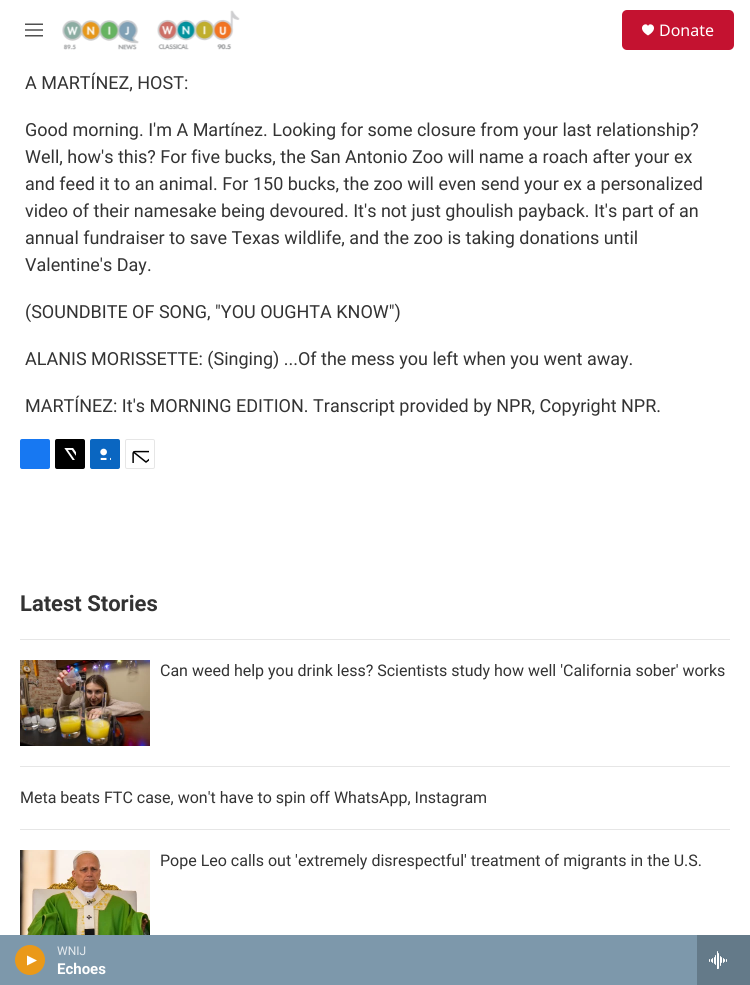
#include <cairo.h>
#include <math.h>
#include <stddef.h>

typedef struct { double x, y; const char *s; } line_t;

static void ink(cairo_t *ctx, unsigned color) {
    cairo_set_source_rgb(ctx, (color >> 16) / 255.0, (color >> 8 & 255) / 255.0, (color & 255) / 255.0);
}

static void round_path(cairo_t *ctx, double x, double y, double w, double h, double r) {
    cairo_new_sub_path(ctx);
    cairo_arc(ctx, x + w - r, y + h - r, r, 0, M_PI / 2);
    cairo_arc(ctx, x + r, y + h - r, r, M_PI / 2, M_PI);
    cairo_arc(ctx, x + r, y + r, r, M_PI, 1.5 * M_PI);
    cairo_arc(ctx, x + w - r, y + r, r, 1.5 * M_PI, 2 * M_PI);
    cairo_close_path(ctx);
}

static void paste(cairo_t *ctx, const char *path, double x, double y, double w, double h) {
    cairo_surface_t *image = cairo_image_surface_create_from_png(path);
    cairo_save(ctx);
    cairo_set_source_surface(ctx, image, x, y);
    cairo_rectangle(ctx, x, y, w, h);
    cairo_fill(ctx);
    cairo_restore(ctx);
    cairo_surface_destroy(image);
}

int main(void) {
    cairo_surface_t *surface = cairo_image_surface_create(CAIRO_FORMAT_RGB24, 750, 985);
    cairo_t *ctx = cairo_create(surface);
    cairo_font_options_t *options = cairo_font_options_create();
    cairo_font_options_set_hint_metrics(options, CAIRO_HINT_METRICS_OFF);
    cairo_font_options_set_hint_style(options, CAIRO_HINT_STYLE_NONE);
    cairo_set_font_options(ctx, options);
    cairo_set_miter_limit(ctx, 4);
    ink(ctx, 0xFFFFFF);
    cairo_paint(ctx);
    paste(ctx, "media/1.png", 25, 23, 18, 14);
    paste(ctx, "media/2.png", 62, 10, 178, 40);
    ink(ctx, 0xC41230);
    round_path(ctx, 622, 10, 112, 40, 5);
    cairo_fill(ctx);
    ink(ctx, 0xFFFFFF);
    cairo_new_path(ctx);
    cairo_move_to(ctx, 648, 26);
    cairo_curve_to(ctx, 646, 21, 635.5, 28, 648, 35.5);
    cairo_curve_to(ctx, 660.5, 28, 650, 21, 648, 26);
    cairo_close_path(ctx);
    cairo_fill(ctx);
    cairo_select_font_face(ctx, "Noto Sans", CAIRO_FONT_SLANT_NORMAL, CAIRO_FONT_WEIGHT_NORMAL);
    cairo_set_font_size(ctx, 16);
    cairo_move_to(ctx, 659, 36);
    cairo_show_text(ctx, "Donate");
    ink(ctx, 0x7D98AB);
    cairo_rectangle(ctx, 0, 935, 697, 50);
    cairo_fill(ctx);
    ink(ctx, 0xEA9919);
    cairo_arc(ctx, 30, 960, 15, 0, 2 * M_PI);
    cairo_fill(ctx);
    ink(ctx, 0xFFFFFF);
    cairo_new_path(ctx);
    cairo_move_to(ctx, 27, 955.5);
    cairo_line_to(ctx, 37, 960.5);
    cairo_line_to(ctx, 27, 965.5);
    cairo_close_path(ctx);
    cairo_fill(ctx);
    cairo_select_font_face(ctx, "Roboto", CAIRO_FONT_SLANT_NORMAL, CAIRO_FONT_WEIGHT_NORMAL);
    cairo_set_font_size(ctx, 12);
    ink(ctx, 0xE5EAEE);
    cairo_move_to(ctx, 57, 955);
    cairo_show_text(ctx, "WNIJ");
    cairo_select_font_face(ctx, "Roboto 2", CAIRO_FONT_SLANT_NORMAL, CAIRO_FONT_WEIGHT_BOLD);
    cairo_set_font_size(ctx, 15);
    ink(ctx, 0xFFFFFF);
    cairo_move_to(ctx, 57, 974);
    cairo_show_text(ctx, "Echoes");
    ink(ctx, 0x647A89);
    cairo_rectangle(ctx, 697, 935, 53, 50);
    cairo_fill(ctx);
    paste(ctx, "media/3.png", 709, 951, 18, 18);
    cairo_select_font_face(ctx, "Roboto", CAIRO_FONT_SLANT_NORMAL, CAIRO_FONT_WEIGHT_NORMAL);
    cairo_set_font_size(ctx, 18);
    ink(ctx, 0x333333);
    {
        static const line_t items[] = {
            {25, 89, "A MARTÍNEZ, HOST:"},
            {25, 136, "Good morning. I'm A Martínez. Looking for some closure from your last relationship?"},
            {25, 163, "Well, how's this? For five bucks, the San Antonio Zoo will name a roach after your ex"},
            {25, 190, "and feed it to an animal. For 150 bucks, the zoo will even send your ex a personalized"},
            {25, 217, "video of their namesake being devoured. It's not just ghoulish payback. It's part of an"},
            {25, 244, "annual fundraiser to save Texas wildlife, and the zoo is taking donations until"},
            {25, 271, "Valentine's Day."},
            {25, 318, "(SOUNDBITE OF SONG, \"YOU OUGHTA KNOW\")"},
            {25, 365, "ALANIS MORISSETTE: (Singing) ...Of the mess you left when you went away."},
            {25, 412, "MARTÍNEZ: It's MORNING EDITION. Transcript provided by NPR, Copyright NPR."},
        };
        for (size_t i = 0; i < sizeof items / sizeof *items; i++) {
            cairo_move_to(ctx, items[i].x, items[i].y);
            cairo_show_text(ctx, items[i].s);
        }
    }
    ink(ctx, 0x1778F2);
    round_path(ctx, 20, 439, 30, 30, 2);
    cairo_fill(ctx);
    ink(ctx, 0x000000);
    round_path(ctx, 55, 439, 30, 30, 2);
    cairo_fill(ctx);
    paste(ctx, "media/4.png", 64, 448, 12, 12);
    ink(ctx, 0x0A66C1);
    round_path(ctx, 90, 439, 30, 30, 2);
    cairo_fill(ctx);
    paste(ctx, "media/5.png", 100, 448, 11, 12);
    round_path(ctx, 125.5, 439.5, 29, 29, 1.5);
    ink(ctx, 0xE6E6E6);
    cairo_set_line_width(ctx, 1);
    cairo_stroke(ctx);
    paste(ctx, "media/6.png", 132, 450, 17, 13);
    cairo_rectangle(ctx, 20, 639, 710, 1);
    cairo_fill(ctx);
    cairo_select_font_face(ctx, "Roboto", CAIRO_FONT_SLANT_NORMAL, CAIRO_FONT_WEIGHT_BOLD);
    cairo_set_font_size(ctx, 22);
    ink(ctx, 0x333333);
    cairo_move_to(ctx, 20, 611);
    cairo_show_text(ctx, "Latest Stories");
    ink(ctx, 0xE6E6E6);
    cairo_rectangle(ctx, 20, 766, 710, 1);
    cairo_fill(ctx);
    paste(ctx, "media/7.png", 20, 660, 130, 86);
    cairo_select_font_face(ctx, "Roboto", CAIRO_FONT_SLANT_NORMAL, CAIRO_FONT_WEIGHT_NORMAL);
    cairo_set_font_size(ctx, 16);
    ink(ctx, 0x333333);
    cairo_move_to(ctx, 160, 676);
    cairo_show_text(ctx, "Can weed help you drink less? Scientists study how well 'California sober' works");
    ink(ctx, 0xE6E6E6);
    cairo_rectangle(ctx, 20, 829, 710, 1);
    cairo_fill(ctx);
    ink(ctx, 0x333333);
    cairo_move_to(ctx, 20, 803);
    cairo_show_text(ctx, "Meta beats FTC case, won't have to spin off WhatsApp, Instagram");
    paste(ctx, "media/8.png", 20, 850, 130, 85);
    cairo_move_to(ctx, 160, 866);
    cairo_show_text(ctx, "Pope Leo calls out 'extremely disrespectful' treatment of migrants in the U.S.");
    cairo_surface_write_to_png(surface, "image.png");
    cairo_font_options_destroy(options);
    cairo_destroy(ctx);
    cairo_surface_destroy(surface);
    return 0;
}
